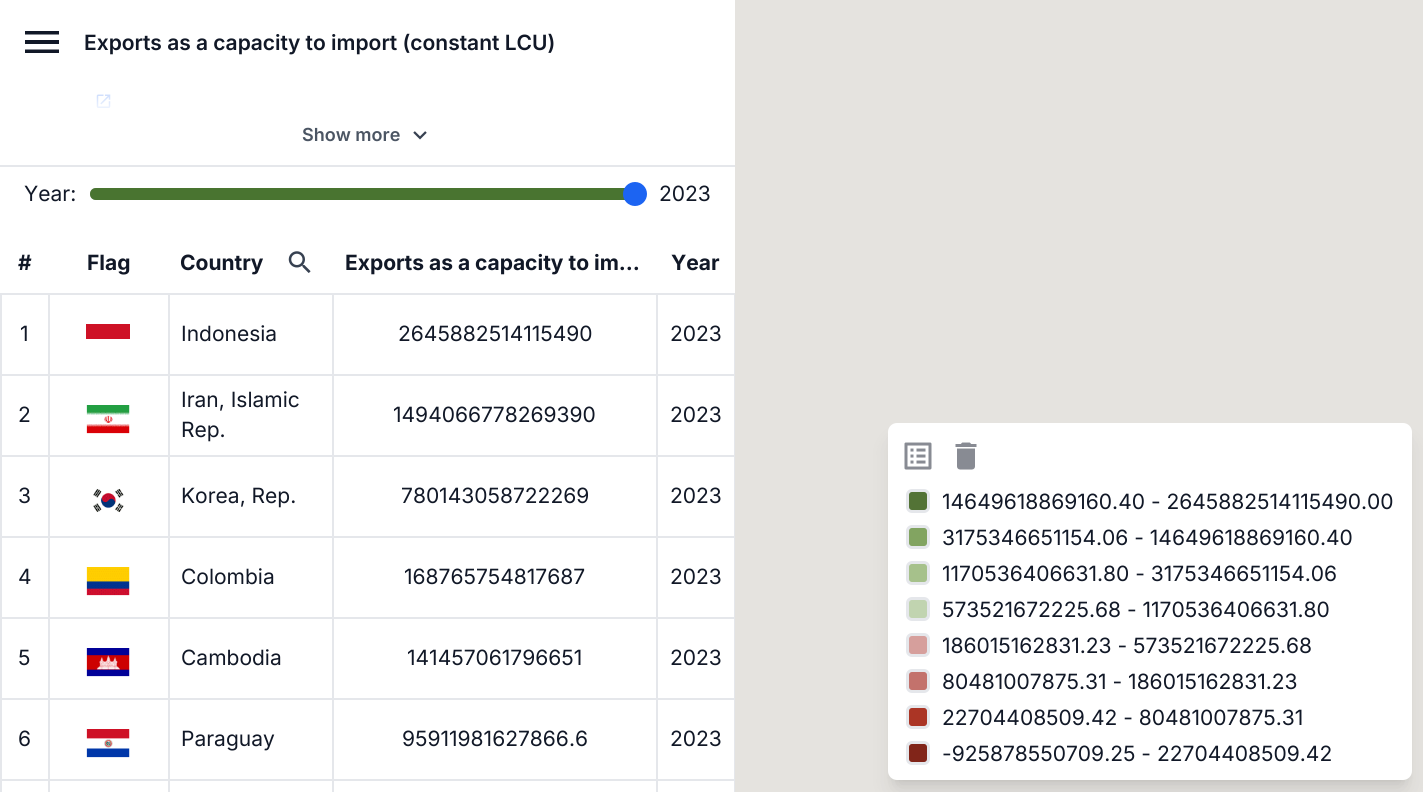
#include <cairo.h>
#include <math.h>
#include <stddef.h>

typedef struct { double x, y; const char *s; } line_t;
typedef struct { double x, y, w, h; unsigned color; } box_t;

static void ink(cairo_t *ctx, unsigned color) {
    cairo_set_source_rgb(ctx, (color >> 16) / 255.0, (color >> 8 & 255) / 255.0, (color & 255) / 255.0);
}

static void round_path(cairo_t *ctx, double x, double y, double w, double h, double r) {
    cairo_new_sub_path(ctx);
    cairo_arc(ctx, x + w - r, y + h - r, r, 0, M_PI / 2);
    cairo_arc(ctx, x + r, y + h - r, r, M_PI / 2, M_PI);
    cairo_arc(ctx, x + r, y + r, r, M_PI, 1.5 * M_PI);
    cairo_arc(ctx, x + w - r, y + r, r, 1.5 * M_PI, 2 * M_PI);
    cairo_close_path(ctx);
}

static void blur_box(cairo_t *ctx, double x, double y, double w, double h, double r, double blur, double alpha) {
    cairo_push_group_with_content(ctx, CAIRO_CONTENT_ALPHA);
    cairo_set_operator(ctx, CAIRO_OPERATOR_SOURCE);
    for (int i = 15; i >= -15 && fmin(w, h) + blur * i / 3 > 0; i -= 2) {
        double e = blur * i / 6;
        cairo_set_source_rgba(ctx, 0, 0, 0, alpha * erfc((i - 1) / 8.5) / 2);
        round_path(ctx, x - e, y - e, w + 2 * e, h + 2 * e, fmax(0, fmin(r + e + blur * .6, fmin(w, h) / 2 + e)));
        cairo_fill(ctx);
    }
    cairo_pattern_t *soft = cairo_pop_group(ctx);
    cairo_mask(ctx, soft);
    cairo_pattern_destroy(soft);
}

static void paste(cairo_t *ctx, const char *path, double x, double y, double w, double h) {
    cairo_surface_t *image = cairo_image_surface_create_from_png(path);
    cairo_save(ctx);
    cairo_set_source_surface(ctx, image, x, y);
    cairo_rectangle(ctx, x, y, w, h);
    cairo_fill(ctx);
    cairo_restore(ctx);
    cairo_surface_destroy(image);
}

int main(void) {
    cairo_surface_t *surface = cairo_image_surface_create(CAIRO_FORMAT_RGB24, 1423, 792);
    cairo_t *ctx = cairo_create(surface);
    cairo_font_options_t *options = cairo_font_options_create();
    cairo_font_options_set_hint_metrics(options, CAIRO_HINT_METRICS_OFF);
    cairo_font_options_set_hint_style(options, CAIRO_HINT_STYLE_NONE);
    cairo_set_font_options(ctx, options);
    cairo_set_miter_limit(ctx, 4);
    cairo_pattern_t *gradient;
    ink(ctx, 0xE5E3DF);
    cairo_paint(ctx);
    ink(ctx, 0xFFFFFF);
    cairo_rectangle(ctx, 0, 0, 735, 792);
    cairo_fill(ctx);
    ink(ctx, 0x111827);
    cairo_new_path(ctx);
    cairo_move_to(ctx, 25, 53);
    cairo_line_to(ctx, 59, 53);
    cairo_line_to(ctx, 59, 49.5);
    cairo_line_to(ctx, 25, 49.5);
    cairo_close_path(ctx);
    cairo_move_to(ctx, 25, 44);
    cairo_line_to(ctx, 59, 44);
    cairo_line_to(ctx, 59, 40);
    cairo_line_to(ctx, 25, 40);
    cairo_close_path(ctx);
    cairo_move_to(ctx, 25, 31);
    cairo_line_to(ctx, 25, 34.5);
    cairo_line_to(ctx, 59, 34.5);
    cairo_line_to(ctx, 59, 31);
    cairo_close_path(ctx);
    cairo_fill(ctx);
    cairo_select_font_face(ctx, "Inter SemiBold", CAIRO_FONT_SLANT_NORMAL, CAIRO_FONT_WEIGHT_NORMAL);
    cairo_set_font_size(ctx, 21);
    cairo_move_to(ctx, 84, 50);
    cairo_show_text(ctx, "Exports as a capacity to import (constant LCU)");
    ink(ctx, 0xE5E7EB);
    cairo_rectangle(ctx, 0, 165, 735, 2);
    cairo_fill(ctx);
    paste(ctx, "media/1.png", 96, 94, 15, 14);
    gradient = cairo_pattern_create_linear(368, 111, 368, 15);
    cairo_pattern_add_color_stop_rgba(gradient, 0, 1, 1, 1, 0.95);
    cairo_pattern_add_color_stop_rgba(gradient, 1, 1, 1, 1, 0);
    cairo_set_source(ctx, gradient);
    cairo_pattern_destroy(gradient);
    cairo_rectangle(ctx, 96, 94, 15, 14);
    cairo_fill(ctx);
    cairo_set_font_size(ctx, 18);
    ink(ctx, 0x4B5563);
    cairo_move_to(ctx, 302, 141);
    cairo_show_text(ctx, "Show more");
    paste(ctx, "media/2.png", 413, 131, 14, 9);
    cairo_select_font_face(ctx, "Inter", CAIRO_FONT_SLANT_NORMAL, CAIRO_FONT_WEIGHT_NORMAL);
    cairo_set_font_size(ctx, 21);
    ink(ctx, 0x111827);
    cairo_move_to(ctx, 24, 201);
    cairo_show_text(ctx, "Year:");
    round_path(ctx, 91, 189, 553, 10, 5);
    ink(ctx, 0xB2B2B2);
    cairo_stroke(ctx);
    ink(ctx, 0x497430);
    cairo_new_path(ctx);
    cairo_move_to(ctx, 96, 188);
    cairo_line_to(ctx, 635, 188);
    cairo_line_to(ctx, 635, 200);
    cairo_line_to(ctx, 96, 200);
    cairo_curve_to(ctx, 92.5, 200, 90, 197.5, 90, 194);
    cairo_curve_to(ctx, 90, 190.5, 92.5, 188, 96, 188);
    cairo_close_path(ctx);
    cairo_fill(ctx);
    ink(ctx, 0x1C64F2);
    cairo_arc(ctx, 635, 194, 12, 0, 2 * M_PI);
    cairo_fill(ctx);
    ink(ctx, 0x111827);
    cairo_move_to(ctx, 659, 201);
    cairo_show_text(ctx, "2023");
    cairo_select_font_face(ctx, "Inter", CAIRO_FONT_SLANT_NORMAL, CAIRO_FONT_WEIGHT_BOLD);
    {
        static const line_t items[] = {
            {18, 270, "#"},
            {87, 270, "Flag"},
            {180, 270, "Country"},
        };
        for (size_t i = 0; i < sizeof items / sizeof *items; i++) {
            cairo_move_to(ctx, items[i].x, items[i].y);
            cairo_show_text(ctx, items[i].s);
        }
    }
    paste(ctx, "media/3.png", 288, 251, 23, 22);
    cairo_move_to(ctx, 345, 270);
    cairo_show_text(ctx, "Exports as a capacity to im…");
    cairo_move_to(ctx, 671, 270);
    cairo_show_text(ctx, "Year");
    {
        static const box_t items[] = {
            {0, 374, 735, 2, 0xE5E7EB},
            {656, 293, 79, 2, 0xE5E7EB},
            {0, 455, 735, 2, 0xE5E7EB},
            {0, 536, 735, 2, 0xE5E7EB},
            {0, 617, 735, 2, 0xE5E7EB},
            {0, 698, 735, 2, 0xE5E7EB},
            {0, 779, 735, 2, 0xE5E7EB},
            {656, 374, 2, 418, 0xE5E7EB},
            {656, 293, 2, 82, 0xE5E7EB},
            {332, 293, 325, 2, 0xE5E7EB},
            {332, 374, 2, 418, 0xE5E7EB},
            {332, 293, 2, 82, 0xE5E7EB},
            {168, 293, 165, 2, 0xE5E7EB},
            {168, 374, 2, 418, 0xE5E7EB},
            {168, 293, 2, 82, 0xE5E7EB},
            {48, 293, 122, 2, 0xE5E7EB},
            {48, 374, 2, 418, 0xE5E7EB},
            {48, 293, 2, 82, 0xE5E7EB},
            {0, 293, 50, 2, 0xE5E7EB},
            {0, 374, 2, 418, 0xE5E7EB},
            {0, 293, 2, 82, 0xE5E7EB},
        };
        for (size_t i = 0; i < sizeof items / sizeof *items; i++) {
            ink(ctx, items[i].color);
            cairo_rectangle(ctx, items[i].x, items[i].y, items[i].w, items[i].h);
            cairo_fill(ctx);
        }
    }
    cairo_select_font_face(ctx, "Inter", CAIRO_FONT_SLANT_NORMAL, CAIRO_FONT_WEIGHT_NORMAL);
    ink(ctx, 0x111827);
    cairo_move_to(ctx, 20, 341);
    cairo_show_text(ctx, "1");
    ink(ctx, 0xCE1126);
    cairo_rectangle(ctx, 86, 324, 44, 15);
    cairo_fill(ctx);
    ink(ctx, 0x111827);
    cairo_move_to(ctx, 181, 341);
    cairo_show_text(ctx, "Indonesia");
    cairo_move_to(ctx, 398, 341);
    cairo_show_text(ctx, "2645882514115490");
    ink(ctx, 0xE5E7EB);
    cairo_rectangle(ctx, 734, 374, 1, 418);
    cairo_fill(ctx);
    cairo_rectangle(ctx, 734, 293, 1, 82);
    cairo_fill(ctx);
    ink(ctx, 0x111827);
    cairo_move_to(ctx, 670, 341);
    cairo_show_text(ctx, "2023");
    cairo_move_to(ctx, 18, 422);
    cairo_show_text(ctx, "2");
    paste(ctx, "media/4.png", 86, 405, 44, 29);
    {
        static const line_t items[] = {
            {181, 407, "Iran, Islamic"},
            {181, 437, "Rep."},
            {393, 422, "1494066778269390"},
            {670, 422, "2023"},
            {18, 503, "3"},
        };
        for (size_t i = 0; i < sizeof items / sizeof *items; i++) {
            cairo_move_to(ctx, items[i].x, items[i].y);
            cairo_show_text(ctx, items[i].s);
        }
    }
    paste(ctx, "media/5.png", 93, 488, 31, 25);
    {
        static const line_t items[] = {
            {181, 503, "Korea, Rep."},
            {401, 503, "780143058722269"},
            {670, 503, "2023"},
            {18, 584, "4"},
        };
        for (size_t i = 0; i < sizeof items / sizeof *items; i++) {
            cairo_move_to(ctx, items[i].x, items[i].y);
            cairo_show_text(ctx, items[i].s);
        }
    }
    paste(ctx, "media/6.png", 86, 567, 44, 29);
    {
        static const line_t items[] = {
            {181, 584, "Colombia"},
            {404, 584, "168765754817687"},
            {670, 584, "2023"},
            {18, 665, "5"},
        };
        for (size_t i = 0; i < sizeof items / sizeof *items; i++) {
            cairo_move_to(ctx, items[i].x, items[i].y);
            cairo_show_text(ctx, items[i].s);
        }
    }
    paste(ctx, "media/7.png", 86, 648, 44, 29);
    {
        static const line_t items[] = {
            {181, 665, "Cambodia"},
            {407, 665, "141457061796651"},
            {670, 665, "2023"},
            {18, 746, "6"},
        };
        for (size_t i = 0; i < sizeof items / sizeof *items; i++) {
            cairo_move_to(ctx, items[i].x, items[i].y);
            cairo_show_text(ctx, items[i].s);
        }
    }
    paste(ctx, "media/8.png", 86, 729, 44, 29);
    {
        static const line_t items[] = {
            {181, 746, "Paraguay"},
            {402, 746, "95911981627866.6"},
            {670, 746, "2023"},
        };
        for (size_t i = 0; i < sizeof items / sizeof *items; i++) {
            cairo_move_to(ctx, items[i].x, items[i].y);
            cairo_show_text(ctx, items[i].s);
        }
    }
    ink(ctx, 0x000000);
    blur_box(ctx, 894, 435, 512, 345, 3, 4.5, 0.1);
    blur_box(ctx, 893, 443, 514, 348, 5, 11, 0.1);
    ink(ctx, 0xFFFFFF);
    round_path(ctx, 888, 423, 524, 357, 9);
    cairo_fill(ctx);
    paste(ctx, "media/9.png", 904, 442, 28, 28);
    paste(ctx, "media/10.png", 955, 442, 22, 28);
    ink(ctx, 0x537336);
    round_path(ctx, 907.5, 490.5, 21, 21, 4.5);
    cairo_fill_preserve(ctx);
    ink(ctx, 0xE5E7EB);
    cairo_set_line_width(ctx, 3);
    cairo_stroke(ctx);
    ink(ctx, 0x111827);
    cairo_move_to(ctx, 942, 509);
    cairo_show_text(ctx, "14649618869160.40 - 2645882514115490.00");
    ink(ctx, 0x82A461);
    round_path(ctx, 907.5, 526.5, 21, 21, 4.5);
    cairo_fill_preserve(ctx);
    ink(ctx, 0xE5E7EB);
    cairo_stroke(ctx);
    ink(ctx, 0x111827);
    cairo_move_to(ctx, 942, 545);
    cairo_show_text(ctx, "3175346651154.06 - 14649618869160.40");
    ink(ctx, 0xA6C18B);
    round_path(ctx, 907.5, 562.5, 21, 21, 4.5);
    cairo_fill_preserve(ctx);
    ink(ctx, 0xE5E7EB);
    cairo_stroke(ctx);
    ink(ctx, 0x111827);
    cairo_move_to(ctx, 942, 581);
    cairo_show_text(ctx, "1170536406631.80 - 3175346651154.06");
    ink(ctx, 0xC1D4B0);
    round_path(ctx, 907.5, 598.5, 21, 21, 4.5);
    cairo_fill_preserve(ctx);
    ink(ctx, 0xE5E7EB);
    cairo_stroke(ctx);
    ink(ctx, 0x111827);
    cairo_move_to(ctx, 942, 617);
    cairo_show_text(ctx, "573521672225.68 - 1170536406631.80");
    ink(ctx, 0xD69F9C);
    round_path(ctx, 907.5, 634.5, 21, 21, 4.5);
    cairo_fill_preserve(ctx);
    ink(ctx, 0xE5E7EB);
    cairo_stroke(ctx);
    ink(ctx, 0x111827);
    cairo_move_to(ctx, 942, 653);
    cairo_show_text(ctx, "186015162831.23 - 573521672225.68");
    ink(ctx, 0xC3726C);
    round_path(ctx, 907.5, 670.5, 21, 21, 4.5);
    cairo_fill_preserve(ctx);
    ink(ctx, 0xE5E7EB);
    cairo_stroke(ctx);
    ink(ctx, 0x111827);
    cairo_move_to(ctx, 942, 689);
    cairo_show_text(ctx, "80481007875.31 - 186015162831.23");
    ink(ctx, 0xAB3525);
    round_path(ctx, 907.5, 706.5, 21, 21, 4.5);
    cairo_fill_preserve(ctx);
    ink(ctx, 0xE5E7EB);
    cairo_stroke(ctx);
    ink(ctx, 0x111827);
    cairo_move_to(ctx, 942, 725);
    cairo_show_text(ctx, "22704408509.42 - 80481007875.31");
    ink(ctx, 0x812519);
    round_path(ctx, 907.5, 742.5, 21, 21, 4.5);
    cairo_fill_preserve(ctx);
    ink(ctx, 0xE5E7EB);
    cairo_stroke(ctx);
    ink(ctx, 0x111827);
    cairo_move_to(ctx, 942, 761);
    cairo_show_text(ctx, "-925878550709.25 - 22704408509.42");
    cairo_surface_write_to_png(surface, "image.png");
    cairo_font_options_destroy(options);
    cairo_destroy(ctx);
    cairo_surface_destroy(surface);
    return 0;
}
